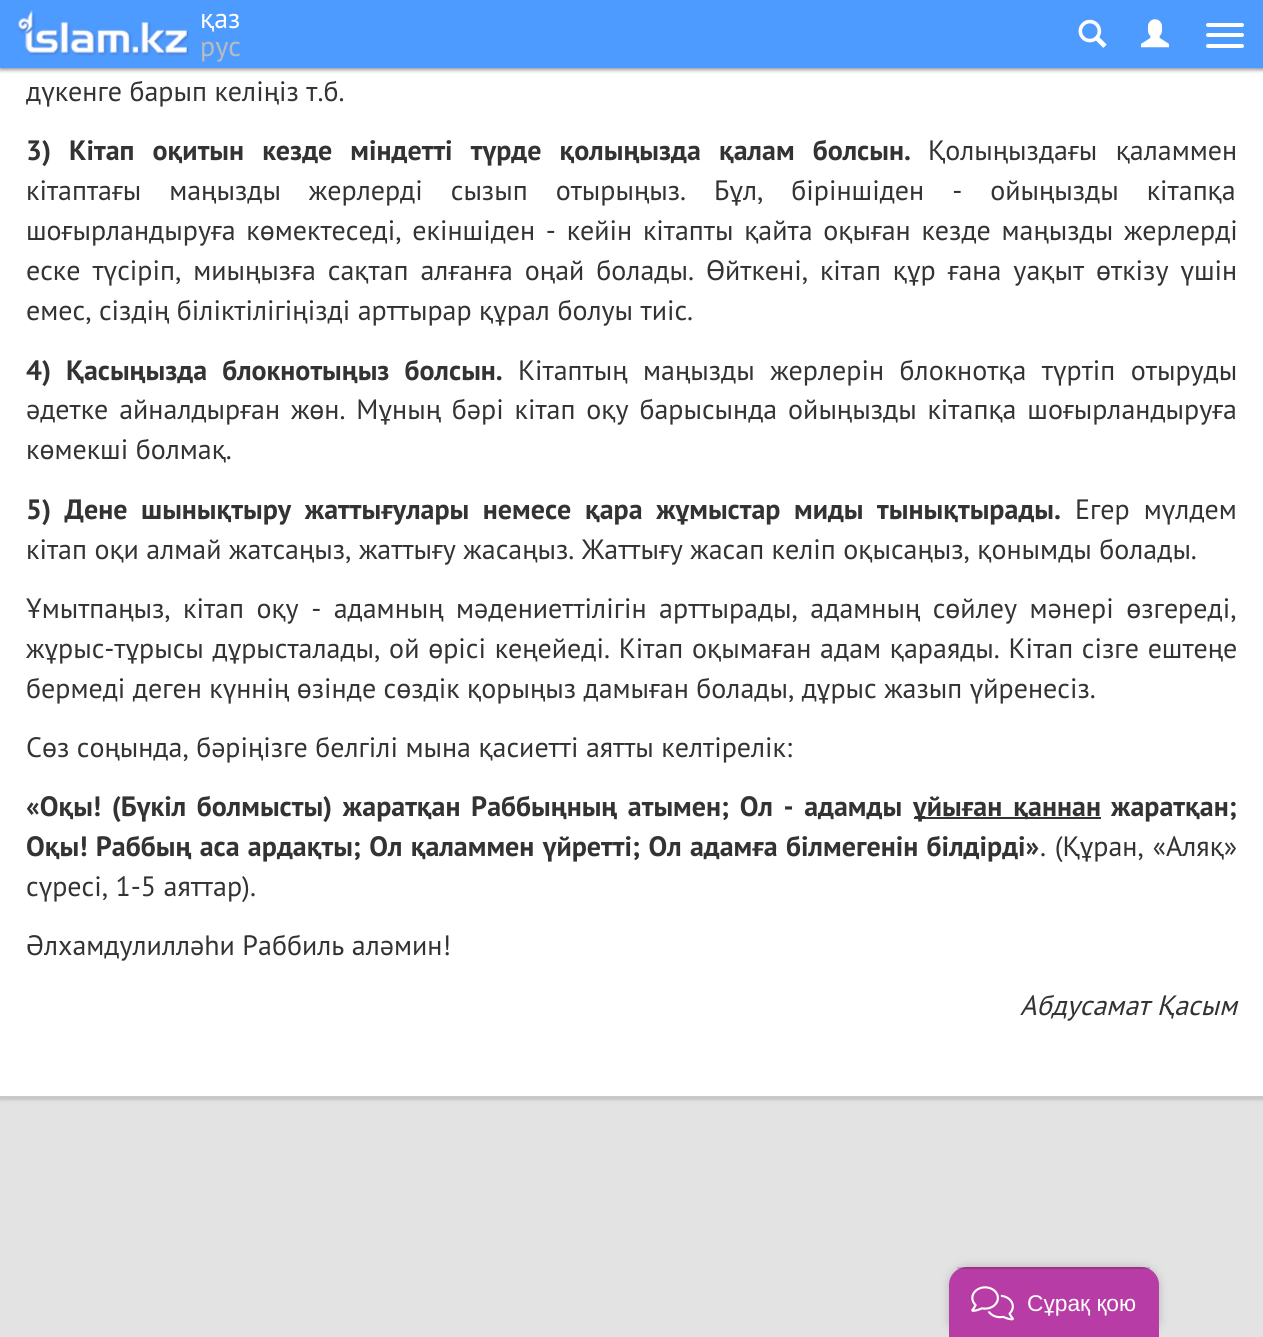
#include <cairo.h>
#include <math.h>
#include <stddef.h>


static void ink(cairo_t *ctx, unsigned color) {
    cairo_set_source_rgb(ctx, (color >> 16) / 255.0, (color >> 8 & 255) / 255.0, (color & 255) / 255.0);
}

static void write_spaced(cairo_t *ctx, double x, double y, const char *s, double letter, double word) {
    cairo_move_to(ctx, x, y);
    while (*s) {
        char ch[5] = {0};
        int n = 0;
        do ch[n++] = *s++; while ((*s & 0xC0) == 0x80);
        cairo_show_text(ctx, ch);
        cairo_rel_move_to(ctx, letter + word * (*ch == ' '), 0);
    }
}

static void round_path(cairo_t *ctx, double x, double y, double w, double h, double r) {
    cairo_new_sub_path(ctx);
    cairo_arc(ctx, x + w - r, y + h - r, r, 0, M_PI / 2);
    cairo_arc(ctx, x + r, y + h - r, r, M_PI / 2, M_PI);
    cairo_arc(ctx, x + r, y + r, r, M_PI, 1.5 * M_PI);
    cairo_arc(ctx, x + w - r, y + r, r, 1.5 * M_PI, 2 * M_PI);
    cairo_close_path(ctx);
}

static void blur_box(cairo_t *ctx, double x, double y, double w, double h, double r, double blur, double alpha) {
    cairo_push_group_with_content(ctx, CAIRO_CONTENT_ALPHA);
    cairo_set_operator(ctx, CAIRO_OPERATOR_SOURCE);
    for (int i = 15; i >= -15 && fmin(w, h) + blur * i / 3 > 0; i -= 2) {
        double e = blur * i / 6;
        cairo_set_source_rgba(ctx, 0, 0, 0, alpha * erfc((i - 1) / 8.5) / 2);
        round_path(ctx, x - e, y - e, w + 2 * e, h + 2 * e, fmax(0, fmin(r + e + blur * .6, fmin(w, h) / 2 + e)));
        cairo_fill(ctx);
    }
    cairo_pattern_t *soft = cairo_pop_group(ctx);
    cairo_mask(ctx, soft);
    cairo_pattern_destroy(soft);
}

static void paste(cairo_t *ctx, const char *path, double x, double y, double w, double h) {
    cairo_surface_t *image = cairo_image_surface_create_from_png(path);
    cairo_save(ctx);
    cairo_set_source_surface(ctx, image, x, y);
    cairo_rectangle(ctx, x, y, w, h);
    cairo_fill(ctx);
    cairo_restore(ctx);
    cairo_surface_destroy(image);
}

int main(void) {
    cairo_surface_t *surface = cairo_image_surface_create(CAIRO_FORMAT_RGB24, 1263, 1337);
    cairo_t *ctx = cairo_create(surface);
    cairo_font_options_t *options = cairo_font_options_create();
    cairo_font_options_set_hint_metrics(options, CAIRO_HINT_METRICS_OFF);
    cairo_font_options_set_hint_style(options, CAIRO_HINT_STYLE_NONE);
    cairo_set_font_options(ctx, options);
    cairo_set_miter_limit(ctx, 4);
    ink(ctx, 0xE3E3E3);
    cairo_paint(ctx);
    ink(ctx, 0xB3B3B3);
    blur_box(ctx, 0, -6, 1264, 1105, 0, 2, 1);
    ink(ctx, 0xFFFFFF);
    cairo_rectangle(ctx, 0, 68, 1263, 1028);
    cairo_fill(ctx);
    ink(ctx, 0x999999);
    blur_box(ctx, 0, 2, 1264, 68, 0, 2, 1);
    ink(ctx, 0x4E9BFF);
    cairo_rectangle(ctx, 0, 0, 1263, 68);
    cairo_fill(ctx);
    paste(ctx, "media/1.png", 17, 10, 172, 46);
    cairo_select_font_face(ctx, "PT Sans", CAIRO_FONT_SLANT_NORMAL, CAIRO_FONT_WEIGHT_NORMAL);
    cairo_set_font_size(ctx, 28);
    ink(ctx, 0xFFFFFF);
    cairo_move_to(ctx, 200, 28);
    cairo_show_text(ctx, "қаз");
    ink(ctx, 0xBBBBBB);
    cairo_move_to(ctx, 200, 56);
    cairo_show_text(ctx, "рус");
    paste(ctx, "media/2.png", 1078, 19, 29, 29);
    paste(ctx, "media/3.png", 1141, 19, 28, 29);
    ink(ctx, 0xFFFFFF);
    round_path(ctx, 1206, 23, 38, 4, 2);
    cairo_fill(ctx);
    round_path(ctx, 1206, 33, 38, 4, 2);
    cairo_fill(ctx);
    round_path(ctx, 1206, 44, 38, 4, 2);
    cairo_fill(ctx);
    ink(ctx, 0xC9C9C9);
    cairo_rectangle(ctx, 0, 1096, 1263, 2);
    cairo_fill(ctx);
    ink(ctx, 0x333333);
    cairo_move_to(ctx, 26, 101);
    cairo_show_text(ctx, "дүкенге барып келіңіз т.б.");
    cairo_select_font_face(ctx, "PT Sans", CAIRO_FONT_SLANT_NORMAL, CAIRO_FONT_WEIGHT_BOLD);
    write_spaced(ctx, 26, 160, "3) Кітап оқитын кезде міндетті түрде қолыңызда қалам болсын.", 0, 11);
    cairo_select_font_face(ctx, "PT Sans", CAIRO_FONT_SLANT_NORMAL, CAIRO_FONT_WEIGHT_NORMAL);
    write_spaced(ctx, 928, 160, "Қолыңыздағы қаламмен", 0, 11);
    write_spaced(ctx, 26, 200, "кітаптағы маңызды жерлерді сызып отырыңыз. Бұл, біріншіден - ойыңызды кітапқа", 0, 20.5);
    write_spaced(ctx, 26, 240, "шоғырландыруға көмектеседі, екіншіден - кейін кітапты қайта оқыған кезде маңызды жерлерді", 0, 3.25);
    write_spaced(ctx, 26, 280, "еске түсіріп, миыңызға сақтап алғанға оңай болады. Өйткені, кітап құр ғана уақыт өткізу үшін", 0, 4.5);
    cairo_move_to(ctx, 26, 320);
    cairo_show_text(ctx, "емес, сіздің біліктілігіңізді арттырар құрал болуы тиіс.");
    cairo_select_font_face(ctx, "PT Sans", CAIRO_FONT_SLANT_NORMAL, CAIRO_FONT_WEIGHT_BOLD);
    write_spaced(ctx, 26, 380, "4) Қасыңызда блокнотыңыз болсын.", 0, 8);
    cairo_select_font_face(ctx, "PT Sans", CAIRO_FONT_SLANT_NORMAL, CAIRO_FONT_WEIGHT_NORMAL);
    write_spaced(ctx, 518, 380, "Кітаптың маңызды жерлерін блокнотқа түртіп отыруды", 0, 8);
    write_spaced(ctx, 26, 419, "әдетке айналдырған жөн. Мұның бәрі кітап оқу барысында ойыңызды кітапқа шоғырландыруға", 0, 3.4);
    cairo_move_to(ctx, 26, 459);
    cairo_show_text(ctx, "көмекші болмақ.");
    cairo_select_font_face(ctx, "PT Sans", CAIRO_FONT_SLANT_NORMAL, CAIRO_FONT_WEIGHT_BOLD);
    write_spaced(ctx, 26, 519, "5) Дене шынықтыру жаттығулары немесе қара жұмыстар миды тынықтырады.", 0, 6.5);
    cairo_select_font_face(ctx, "PT Sans", CAIRO_FONT_SLANT_NORMAL, CAIRO_FONT_WEIGHT_NORMAL);
    write_spaced(ctx, 1075, 519, "Егер мүлдем", 0, 6.5);
    cairo_move_to(ctx, 26, 559);
    cairo_show_text(ctx, "кітап оқи алмай жатсаңыз, жаттығу жасаңыз. Жаттығу жасап келіп оқысаңыз, қонымды болады.");
    write_spaced(ctx, 26, 618, "Ұмытпаңыз, кітап оқу - адамның мәдениеттілігін арттырады, адамның сөйлеу мәнері өзгереді,", 0, 5);
    write_spaced(ctx, 26, 658, "жұрыс-тұрысы дұрысталады, ой өрісі кеңейеді. Кітап оқымаған адам қараяды. Кітап сізге ештеңе", 0, 1.25);
    cairo_move_to(ctx, 26, 698);
    cairo_show_text(ctx, "бермеді деген күннің өзінде сөздік қорыңыз дамыған болады, дұрыс жазып үйренесіз.");
    cairo_move_to(ctx, 26, 757);
    cairo_show_text(ctx, "Сөз соңында, бәріңізге белгілі мына қасиетті аятты келтірелік:");
    cairo_select_font_face(ctx, "PT Sans", CAIRO_FONT_SLANT_NORMAL, CAIRO_FONT_WEIGHT_BOLD);
    write_spaced(ctx, 26, 816, "«Оқы! (Бүкіл болмысты) жаратқан Раббыңның атымен; Ол - адамды", 0, 3.5);
    cairo_rectangle(ctx, 914, 817, 187, 2);
    cairo_fill(ctx);
    write_spaced(ctx, 913, 816, "ұйыған қаннан", 0, 4);
    cairo_move_to(ctx, 1111, 816);
    cairo_show_text(ctx, "жаратқан;");
    write_spaced(ctx, 26, 856, "Оқы! Раббың аса ардақты; Ол қаламмен үйретті; Ол адамға білмегенін білдірді»", 0, 1.25);
    cairo_select_font_face(ctx, "PT Sans", CAIRO_FONT_SLANT_NORMAL, CAIRO_FONT_WEIGHT_NORMAL);
    write_spaced(ctx, 1040, 856, ". (Құран, «Аляқ»", 0, 1.25);
    cairo_move_to(ctx, 26, 896);
    cairo_show_text(ctx, "сүресі, 1-5 аяттар).");
    cairo_move_to(ctx, 26, 955);
    cairo_show_text(ctx, "Әлхамдулилләһи Раббиль аләмин!");
    cairo_select_font_face(ctx, "PT Sans", CAIRO_FONT_SLANT_ITALIC, CAIRO_FONT_WEIGHT_NORMAL);
    cairo_move_to(ctx, 1020, 1015);
    cairo_show_text(ctx, "Абдусамат Қасым");
    ink(ctx, 0x000000);
    blur_box(ctx, 949, 1267, 210, 70, 18, 4.5, 0.2);
    ink(ctx, 0xB83CA5);
    cairo_new_path(ctx);
    cairo_move_to(ctx, 967, 1267);
    cairo_line_to(ctx, 1141, 1267);
    cairo_curve_to(ctx, 1151, 1267, 1159, 1275, 1159, 1285);
    cairo_line_to(ctx, 1159, 1337);
    cairo_line_to(ctx, 949, 1337);
    cairo_line_to(ctx, 949, 1285);
    cairo_curve_to(ctx, 949, 1275, 957, 1267, 967, 1267);
    cairo_close_path(ctx);
    cairo_fill(ctx);
    cairo_set_source_rgba(ctx, 0, 0, 0, 0.15);
    cairo_rectangle(ctx, 957, 1267, 193, 2);
    cairo_fill(ctx);
    paste(ctx, "media/4.png", 971, 1286, 43, 35);
    cairo_select_font_face(ctx, "Liberation Sans", CAIRO_FONT_SLANT_NORMAL, CAIRO_FONT_WEIGHT_NORMAL);
    cairo_set_font_size(ctx, 22.75);
    ink(ctx, 0xFFFFFF);
    cairo_move_to(ctx, 1027, 1311);
    cairo_show_text(ctx, "Сұрақ қою");
    cairo_surface_write_to_png(surface, "image.png");
    cairo_font_options_destroy(options);
    cairo_destroy(ctx);
    cairo_surface_destroy(surface);
    return 0;
}
